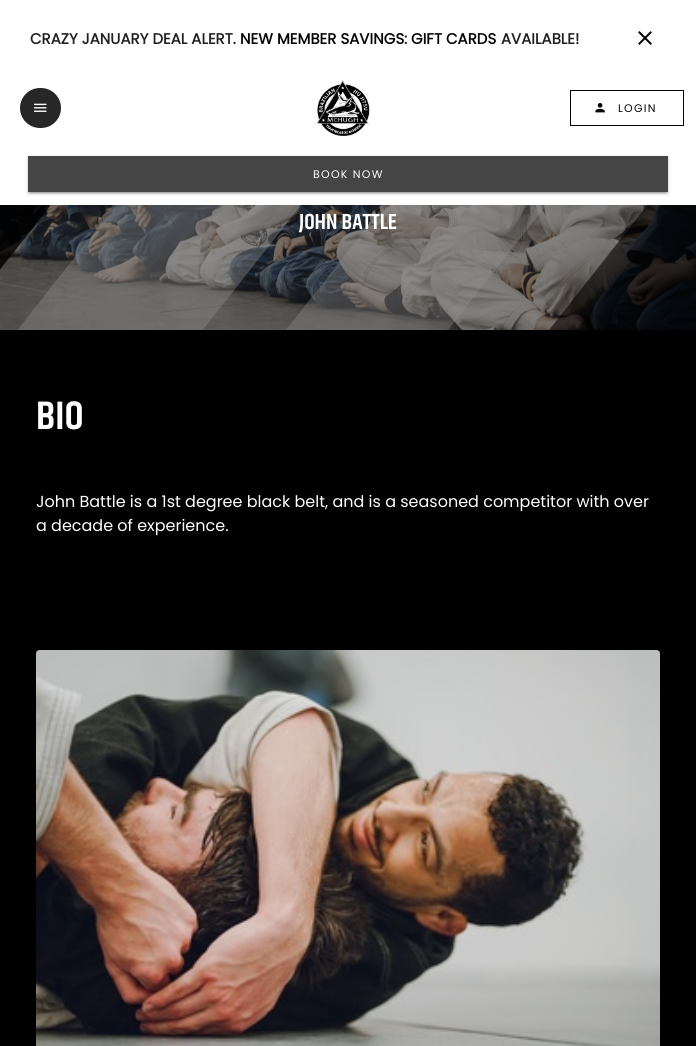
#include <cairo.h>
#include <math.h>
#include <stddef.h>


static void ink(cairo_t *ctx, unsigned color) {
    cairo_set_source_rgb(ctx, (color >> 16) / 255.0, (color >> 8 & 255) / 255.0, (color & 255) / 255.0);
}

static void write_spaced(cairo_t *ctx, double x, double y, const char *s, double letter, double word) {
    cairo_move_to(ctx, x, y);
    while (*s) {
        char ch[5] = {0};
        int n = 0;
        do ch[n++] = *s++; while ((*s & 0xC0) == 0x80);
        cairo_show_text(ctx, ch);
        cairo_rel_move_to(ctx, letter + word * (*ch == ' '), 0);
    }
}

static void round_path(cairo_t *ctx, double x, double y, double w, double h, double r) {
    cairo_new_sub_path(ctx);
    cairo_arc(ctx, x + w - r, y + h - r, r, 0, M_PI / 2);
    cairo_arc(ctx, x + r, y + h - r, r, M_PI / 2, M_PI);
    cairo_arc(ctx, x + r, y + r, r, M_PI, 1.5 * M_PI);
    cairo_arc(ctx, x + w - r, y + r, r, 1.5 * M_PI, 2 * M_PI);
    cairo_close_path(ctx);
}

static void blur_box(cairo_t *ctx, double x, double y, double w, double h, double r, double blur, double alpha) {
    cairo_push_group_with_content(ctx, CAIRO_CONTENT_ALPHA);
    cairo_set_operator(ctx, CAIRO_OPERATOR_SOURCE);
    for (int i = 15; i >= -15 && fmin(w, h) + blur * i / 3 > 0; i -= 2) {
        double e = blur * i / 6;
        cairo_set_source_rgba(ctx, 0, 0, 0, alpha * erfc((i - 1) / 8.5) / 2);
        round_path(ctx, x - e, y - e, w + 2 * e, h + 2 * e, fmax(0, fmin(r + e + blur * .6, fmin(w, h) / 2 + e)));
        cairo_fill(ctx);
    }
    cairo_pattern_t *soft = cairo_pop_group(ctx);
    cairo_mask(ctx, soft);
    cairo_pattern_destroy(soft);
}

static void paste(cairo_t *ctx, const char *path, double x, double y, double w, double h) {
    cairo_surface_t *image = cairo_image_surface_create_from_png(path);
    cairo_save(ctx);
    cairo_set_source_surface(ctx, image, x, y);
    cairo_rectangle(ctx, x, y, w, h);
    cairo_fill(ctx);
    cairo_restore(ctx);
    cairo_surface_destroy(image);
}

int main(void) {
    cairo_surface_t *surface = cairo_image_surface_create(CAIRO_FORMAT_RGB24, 696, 1046);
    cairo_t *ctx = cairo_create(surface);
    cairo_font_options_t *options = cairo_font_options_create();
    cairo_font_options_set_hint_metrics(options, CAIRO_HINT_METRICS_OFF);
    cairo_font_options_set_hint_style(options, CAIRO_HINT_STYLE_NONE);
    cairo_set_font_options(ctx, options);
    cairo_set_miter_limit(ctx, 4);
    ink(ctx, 0xFFFFFF);
    cairo_paint(ctx);
    cairo_select_font_face(ctx, "Poppins", CAIRO_FONT_SLANT_NORMAL, CAIRO_FONT_WEIGHT_BOLD);
    cairo_set_font_size(ctx, 15);
    ink(ctx, 0x212121);
    cairo_move_to(ctx, 30, 44);
    cairo_show_text(ctx, "CRAZY JANUARY DEAL ALERT.");
    ink(ctx, 0x040404);
    cairo_move_to(ctx, 240, 44);
    cairo_show_text(ctx, "NEW MEMBER SAVINGS");
    ink(ctx, 0x212121);
    cairo_move_to(ctx, 404, 44);
    cairo_show_text(ctx, ":");
    ink(ctx, 0x040404);
    cairo_move_to(ctx, 411, 44);
    cairo_show_text(ctx, "GIFT CARDS");
    ink(ctx, 0x212121);
    cairo_move_to(ctx, 501, 44);
    cairo_show_text(ctx, "AVAILABLE!");
    paste(ctx, "media/1.png", 638, 31, 14, 14);
    ink(ctx, 0x272727);
    round_path(ctx, 20, 88, 41, 40, 20);
    cairo_fill(ctx);
    paste(ctx, "media/2.png", 34, 103, 13, 9);
    paste(ctx, "media/3.png", 316, 80, 54, 56);
    cairo_rectangle(ctx, 570.5, 90.5, 113, 35);
    ink(ctx, 0x040404);
    cairo_set_line_width(ctx, 1);
    cairo_stroke(ctx);
    paste(ctx, "media/4.png", 595, 103, 10, 10);
    cairo_select_font_face(ctx, "Poppins", CAIRO_FONT_SLANT_NORMAL, CAIRO_FONT_WEIGHT_NORMAL);
    cairo_set_font_size(ctx, 11);
    write_spaced(ctx, 618, 112, "LOGIN", 1.25, 0);
    ink(ctx, 0x000000);
    blur_box(ctx, 28, 157, 640, 36, 0, 2.5, 0.12);
    blur_box(ctx, 28, 158, 640, 36, 0, 1, 0.14);
    blur_box(ctx, 30, 161, 636, 32, 0, 0.5, 0.2);
    ink(ctx, 0x464545);
    cairo_rectangle(ctx, 28, 156, 640, 36);
    cairo_fill(ctx);
    ink(ctx, 0xFFFFFF);
    write_spaced(ctx, 313, 178, "BOOK NOW", 1.25, 0);
    paste(ctx, "media/5.png", 0, 205, 696, 125);
    cairo_select_font_face(ctx, "Khand SemiBold", CAIRO_FONT_SLANT_NORMAL, CAIRO_FONT_WEIGHT_NORMAL);
    cairo_set_font_size(ctx, 22);
    cairo_move_to(ctx, 299, 229);
    cairo_show_text(ctx, "JOHN BATTLE");
    ink(ctx, 0x000000);
    cairo_rectangle(ctx, 0, 330, 696, 716);
    cairo_fill(ctx);
    cairo_set_font_size(ctx, 40);
    ink(ctx, 0xFFFFFF);
    cairo_move_to(ctx, 36, 429);
    cairo_show_text(ctx, "BIO");
    cairo_select_font_face(ctx, "Poppins", CAIRO_FONT_SLANT_NORMAL, CAIRO_FONT_WEIGHT_NORMAL);
    cairo_set_font_size(ctx, 16);
    cairo_move_to(ctx, 36, 507);
    cairo_show_text(ctx, "John Battle is a 1st degree black belt, and is a seasoned competitor with over");
    cairo_move_to(ctx, 36, 531);
    cairo_show_text(ctx, "a decade of experience.");
    paste(ctx, "media/6.png", 36, 650, 624, 396);
    cairo_surface_write_to_png(surface, "image.png");
    cairo_font_options_destroy(options);
    cairo_destroy(ctx);
    cairo_surface_destroy(surface);
    return 0;
}
